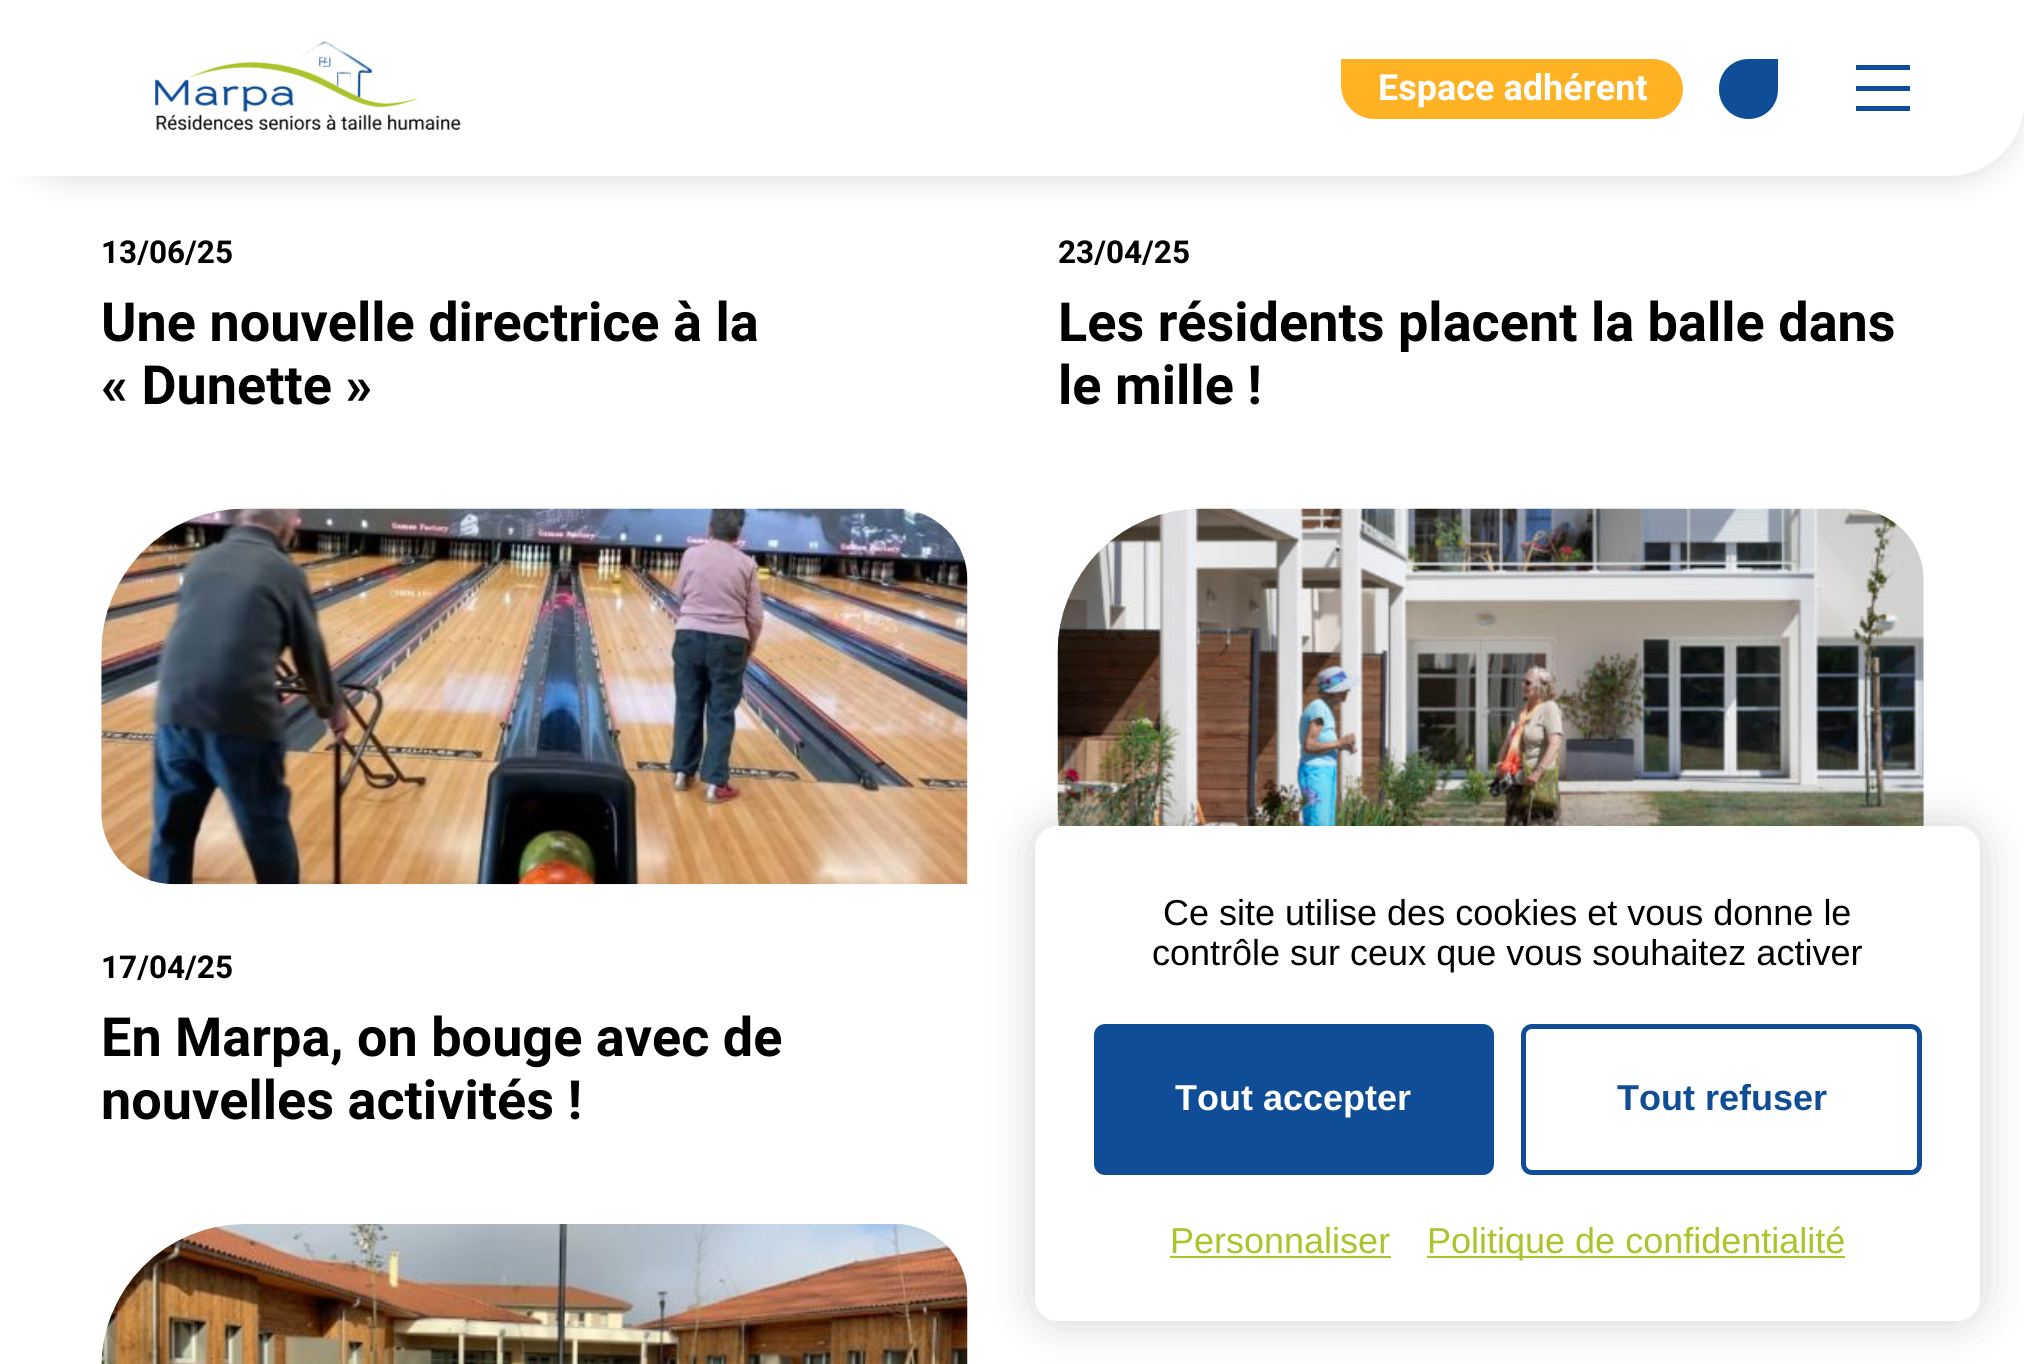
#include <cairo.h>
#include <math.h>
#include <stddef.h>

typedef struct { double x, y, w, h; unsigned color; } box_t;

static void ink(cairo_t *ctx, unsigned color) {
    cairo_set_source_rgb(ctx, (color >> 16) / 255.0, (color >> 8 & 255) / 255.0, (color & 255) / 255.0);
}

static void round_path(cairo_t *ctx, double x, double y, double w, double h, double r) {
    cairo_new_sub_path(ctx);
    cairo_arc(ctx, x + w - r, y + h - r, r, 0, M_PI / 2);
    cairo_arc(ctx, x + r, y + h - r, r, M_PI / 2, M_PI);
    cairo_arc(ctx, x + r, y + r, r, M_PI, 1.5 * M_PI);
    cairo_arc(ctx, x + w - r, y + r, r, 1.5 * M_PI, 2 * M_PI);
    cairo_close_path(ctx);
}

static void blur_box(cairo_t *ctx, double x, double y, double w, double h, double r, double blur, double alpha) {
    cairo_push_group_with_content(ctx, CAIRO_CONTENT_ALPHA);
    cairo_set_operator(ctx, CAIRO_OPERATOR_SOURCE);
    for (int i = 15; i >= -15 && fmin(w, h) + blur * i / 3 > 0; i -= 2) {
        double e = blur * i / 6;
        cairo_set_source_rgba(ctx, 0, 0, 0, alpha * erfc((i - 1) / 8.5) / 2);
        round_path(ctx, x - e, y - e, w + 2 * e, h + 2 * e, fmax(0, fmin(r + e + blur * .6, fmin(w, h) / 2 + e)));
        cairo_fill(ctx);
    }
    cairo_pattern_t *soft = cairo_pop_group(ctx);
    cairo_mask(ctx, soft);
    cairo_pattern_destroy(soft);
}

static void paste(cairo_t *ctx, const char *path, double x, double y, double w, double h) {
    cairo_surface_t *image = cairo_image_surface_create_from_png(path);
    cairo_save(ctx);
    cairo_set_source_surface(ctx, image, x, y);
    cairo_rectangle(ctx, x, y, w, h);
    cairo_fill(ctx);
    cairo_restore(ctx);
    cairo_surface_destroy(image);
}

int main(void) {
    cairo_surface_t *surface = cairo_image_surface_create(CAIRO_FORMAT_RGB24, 2024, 1364);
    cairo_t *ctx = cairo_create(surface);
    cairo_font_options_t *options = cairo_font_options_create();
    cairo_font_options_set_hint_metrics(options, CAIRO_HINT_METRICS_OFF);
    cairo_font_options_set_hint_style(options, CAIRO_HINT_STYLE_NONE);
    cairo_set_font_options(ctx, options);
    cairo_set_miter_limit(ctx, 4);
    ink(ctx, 0xFFFFFF);
    cairo_paint(ctx);
    ink(ctx, 0x999999);
    blur_box(ctx, 0, 7, 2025, 175, 77, 14.5, 0.3);
    ink(ctx, 0xFFFFFF);
    cairo_new_path(ctx);
    cairo_move_to(ctx, 0, 0);
    cairo_line_to(ctx, 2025, 0);
    cairo_line_to(ctx, 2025, 99);
    cairo_curve_to(ctx, 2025, 141.5, 1990.5, 176, 1948, 176);
    cairo_line_to(ctx, 0, 176);
    cairo_close_path(ctx);
    cairo_fill(ctx);
    paste(ctx, "media/1.png", 155, 41, 306, 89);
    ink(ctx, 0xFFB223);
    cairo_new_path(ctx);
    cairo_move_to(ctx, 1341, 59);
    cairo_line_to(ctx, 1653, 59);
    cairo_curve_to(ctx, 1669.5, 59, 1683, 72.5, 1683, 89);
    cairo_curve_to(ctx, 1683, 105.5, 1669.5, 119, 1653, 119);
    cairo_line_to(ctx, 1375, 119);
    cairo_curve_to(ctx, 1356, 119, 1341, 104, 1341, 85);
    cairo_close_path(ctx);
    cairo_fill(ctx);
    cairo_select_font_face(ctx, "Roboto", CAIRO_FONT_SLANT_NORMAL, CAIRO_FONT_WEIGHT_BOLD);
    cairo_set_font_size(ctx, 36);
    ink(ctx, 0xFFFFFF);
    cairo_move_to(ctx, 1378, 100);
    cairo_show_text(ctx, "Espace adhérent");
    ink(ctx, 0x0F4E96);
    cairo_new_path(ctx);
    cairo_move_to(ctx, 1748.5, 59);
    cairo_line_to(ctx, 1778, 59);
    cairo_line_to(ctx, 1778, 89.5);
    cairo_curve_to(ctx, 1778, 106, 1765, 119, 1748.5, 119);
    cairo_curve_to(ctx, 1732, 119, 1719, 106, 1719, 89.5);
    cairo_line_to(ctx, 1719, 88.5);
    cairo_curve_to(ctx, 1719, 72, 1732, 59, 1748.5, 59);
    cairo_close_path(ctx);
    cairo_fill(ctx);
    {
        static const box_t items[] = {
            {1856, 65, 54, 5, 0x0F4E96},
            {1856, 86, 54, 5, 0x0F4E96},
            {1856, 106, 54, 5, 0x0F4E96},
        };
        for (size_t i = 0; i < sizeof items / sizeof *items; i++) {
            ink(ctx, items[i].color);
            cairo_rectangle(ctx, items[i].x, items[i].y, items[i].w, items[i].h);
            cairo_fill(ctx);
        }
    }
    cairo_set_font_size(ctx, 31.5);
    ink(ctx, 0x000000);
    cairo_move_to(ctx, 101, 263);
    cairo_show_text(ctx, "13/06/25");
    cairo_set_font_size(ctx, 54);
    cairo_move_to(ctx, 101, 341);
    cairo_show_text(ctx, "Une nouvelle directrice à la");
    cairo_move_to(ctx, 101, 404);
    cairo_show_text(ctx, "« Dunette »");
    cairo_set_font_size(ctx, 31.5);
    cairo_move_to(ctx, 1058, 263);
    cairo_show_text(ctx, "23/04/25");
    cairo_set_font_size(ctx, 54);
    cairo_move_to(ctx, 1058, 341);
    cairo_show_text(ctx, "Les résidents placent la balle dans");
    cairo_move_to(ctx, 1058, 404);
    cairo_show_text(ctx, "le mille !");
    paste(ctx, "media/2.png", 1057, 508, 867, 318);
    paste(ctx, "media/3.png", 101, 508, 867, 377);
    cairo_set_font_size(ctx, 31.5);
    cairo_move_to(ctx, 101, 978);
    cairo_show_text(ctx, "17/04/25");
    cairo_set_font_size(ctx, 54);
    cairo_move_to(ctx, 101, 1056);
    cairo_show_text(ctx, "En Marpa, on bouge avec de");
    cairo_move_to(ctx, 101, 1119);
    cairo_show_text(ctx, "nouvelles activités !");
    paste(ctx, "media/4.png", 101, 1224, 867, 140);
    ink(ctx, 0x000000);
    blur_box(ctx, 1035, 826, 945, 495, 23, 22.5, 0.18);
    ink(ctx, 0xFFFFFF);
    round_path(ctx, 1035, 826, 945, 495, 23);
    cairo_fill(ctx);
    cairo_select_font_face(ctx, "Liberation Sans", CAIRO_FONT_SLANT_NORMAL, CAIRO_FONT_WEIGHT_NORMAL);
    cairo_set_font_size(ctx, 36);
    ink(ctx, 0x000000);
    cairo_move_to(ctx, 1163, 925);
    cairo_show_text(ctx, "Ce site utilise des cookies et vous donne le");
    cairo_move_to(ctx, 1152, 965);
    cairo_show_text(ctx, "contrôle sur ceux que vous souhaitez activer");
    ink(ctx, 0x0F4E96);
    round_path(ctx, 1096.5, 1026.5, 395, 146, 8.5);
    cairo_fill_preserve(ctx);
    cairo_set_line_width(ctx, 5);
    cairo_stroke(ctx);
    cairo_select_font_face(ctx, "Liberation Sans", CAIRO_FONT_SLANT_NORMAL, CAIRO_FONT_WEIGHT_BOLD);
    ink(ctx, 0xFFFFFF);
    cairo_move_to(ctx, 1175, 1110);
    cairo_show_text(ctx, "Tout accepter");
    round_path(ctx, 1523.5, 1026.5, 396, 146, 8.5);
    ink(ctx, 0x0F4E96);
    cairo_stroke(ctx);
    cairo_move_to(ctx, 1617, 1110);
    cairo_show_text(ctx, "Tout refuser");
    cairo_select_font_face(ctx, "Liberation Sans", CAIRO_FONT_SLANT_NORMAL, CAIRO_FONT_WEIGHT_NORMAL);
    ink(ctx, 0xACC32B);
    cairo_move_to(ctx, 1170, 1253);
    cairo_show_text(ctx, "Personnaliser");
    cairo_rectangle(ctx, 1170, 1256, 221, 2);
    cairo_fill(ctx);
    cairo_rectangle(ctx, 1427, 1256, 418, 2);
    cairo_fill(ctx);
    cairo_move_to(ctx, 1427, 1253);
    cairo_show_text(ctx, "Politique de confidentialité");
    cairo_surface_write_to_png(surface, "image.png");
    cairo_font_options_destroy(options);
    cairo_destroy(ctx);
    cairo_surface_destroy(surface);
    return 0;
}
